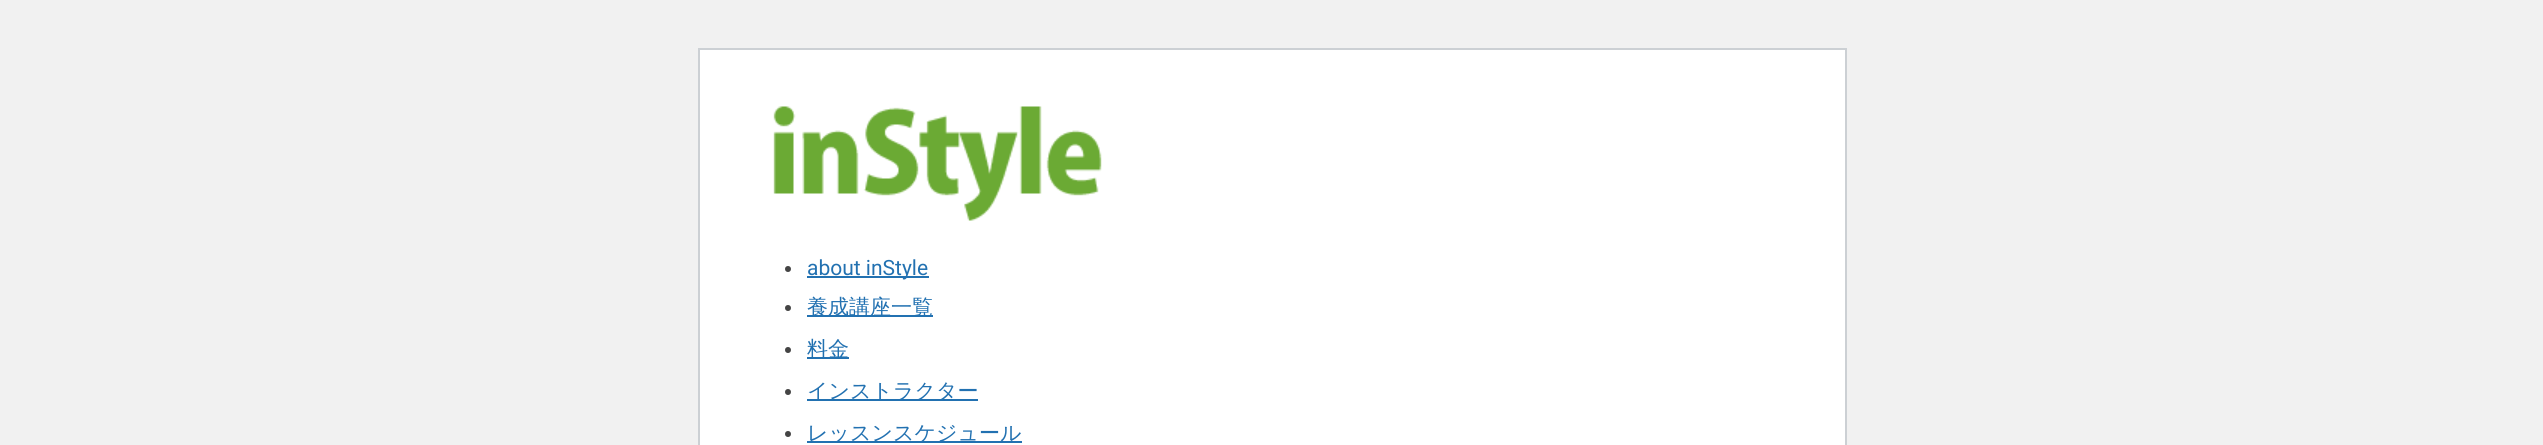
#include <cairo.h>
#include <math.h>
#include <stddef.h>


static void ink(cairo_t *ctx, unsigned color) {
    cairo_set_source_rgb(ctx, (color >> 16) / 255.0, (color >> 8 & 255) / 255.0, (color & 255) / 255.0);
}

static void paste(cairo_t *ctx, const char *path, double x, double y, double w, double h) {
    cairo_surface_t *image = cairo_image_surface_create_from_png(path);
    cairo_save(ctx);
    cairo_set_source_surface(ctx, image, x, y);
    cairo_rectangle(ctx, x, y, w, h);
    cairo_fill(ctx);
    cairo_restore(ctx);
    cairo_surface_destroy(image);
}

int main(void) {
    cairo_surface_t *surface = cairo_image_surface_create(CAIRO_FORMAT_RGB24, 2543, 445);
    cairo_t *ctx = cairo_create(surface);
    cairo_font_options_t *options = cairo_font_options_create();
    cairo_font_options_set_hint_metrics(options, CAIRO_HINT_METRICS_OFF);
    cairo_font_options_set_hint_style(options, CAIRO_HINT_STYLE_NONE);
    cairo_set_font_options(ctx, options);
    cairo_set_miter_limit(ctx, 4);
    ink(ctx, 0xF1F1F1);
    cairo_paint(ctx);
    ink(ctx, 0xFFFFFF);
    cairo_rectangle(ctx, 699, 49, 1147, 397);
    cairo_fill_preserve(ctx);
    ink(ctx, 0xCCD0D4);
    cairo_stroke(ctx);
    paste(ctx, "media/1.png", 773, 106, 329, 115);
    ink(ctx, 0x444444);
    cairo_arc(ctx, 788, 269, 3, 0, 2 * M_PI);
    cairo_fill(ctx);
    ink(ctx, 0x2271B1);
    cairo_rectangle(ctx, 807, 276, 122, 2);
    cairo_fill(ctx);
    cairo_select_font_face(ctx, "Roboto", CAIRO_FONT_SLANT_NORMAL, CAIRO_FONT_WEIGHT_NORMAL);
    cairo_set_font_size(ctx, 21);
    cairo_move_to(ctx, 807, 275);
    cairo_show_text(ctx, "about inStyle");
    ink(ctx, 0x444444);
    cairo_new_path(ctx);
    cairo_arc(ctx, 788, 308, 3, 0, 2 * M_PI);
    cairo_fill(ctx);
    ink(ctx, 0x2271B1);
    cairo_rectangle(ctx, 807, 315, 126, 2);
    cairo_fill(ctx);
    cairo_select_font_face(ctx, "WenQuanYi Zen Hei Medium", CAIRO_FONT_SLANT_NORMAL, CAIRO_FONT_WEIGHT_NORMAL);
    cairo_move_to(ctx, 807, 314);
    cairo_show_text(ctx, "養成講座一覧");
    ink(ctx, 0x444444);
    cairo_new_path(ctx);
    cairo_arc(ctx, 788, 350, 3, 0, 2 * M_PI);
    cairo_fill(ctx);
    ink(ctx, 0x2271B1);
    cairo_rectangle(ctx, 807, 357, 42, 2);
    cairo_fill(ctx);
    cairo_move_to(ctx, 807, 356);
    cairo_show_text(ctx, "料金");
    ink(ctx, 0x444444);
    cairo_new_path(ctx);
    cairo_arc(ctx, 788, 392, 3, 0, 2 * M_PI);
    cairo_fill(ctx);
    ink(ctx, 0x2271B1);
    cairo_rectangle(ctx, 807, 399, 171, 2);
    cairo_fill(ctx);
    cairo_move_to(ctx, 807, 398);
    cairo_show_text(ctx, "インストラクター");
    ink(ctx, 0x444444);
    cairo_new_path(ctx);
    cairo_arc(ctx, 788, 434, 3, 0, 2 * M_PI);
    cairo_fill(ctx);
    ink(ctx, 0x2271B1);
    cairo_rectangle(ctx, 807, 441, 215, 2);
    cairo_fill(ctx);
    cairo_move_to(ctx, 807, 440);
    cairo_show_text(ctx, "レッスンスケジュール");
    cairo_surface_write_to_png(surface, "image.png");
    cairo_font_options_destroy(options);
    cairo_destroy(ctx);
    cairo_surface_destroy(surface);
    return 0;
}
